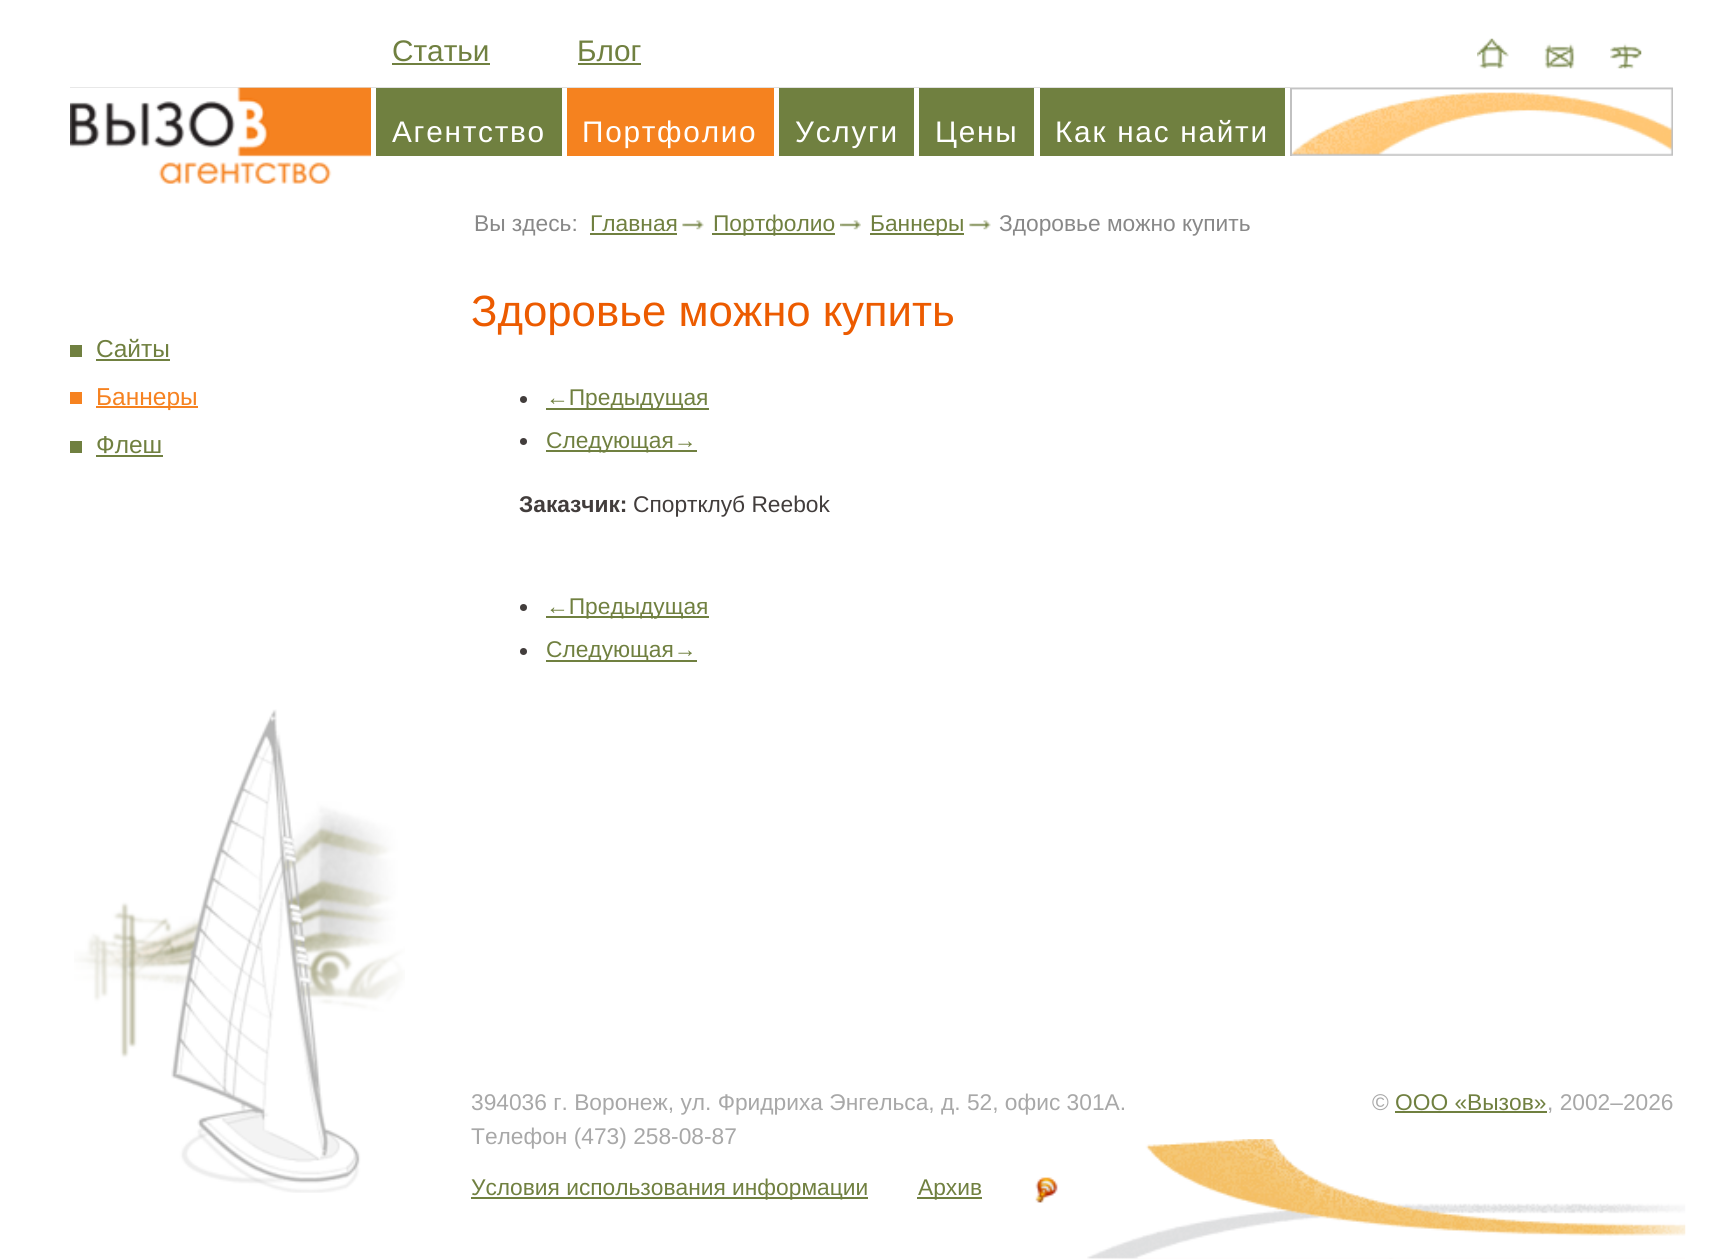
#include <cairo.h>
#include <math.h>
#include <stddef.h>

typedef struct { double x, y; const char *s; } line_t;
typedef struct { double x, y, w, h; unsigned color; } box_t;

static void ink(cairo_t *ctx, unsigned color) {
    cairo_set_source_rgb(ctx, (color >> 16) / 255.0, (color >> 8 & 255) / 255.0, (color & 255) / 255.0);
}

static void write_spaced(cairo_t *ctx, double x, double y, const char *s, double letter, double word) {
    cairo_move_to(ctx, x, y);
    while (*s) {
        char ch[5] = {0};
        int n = 0;
        do ch[n++] = *s++; while ((*s & 0xC0) == 0x80);
        cairo_show_text(ctx, ch);
        cairo_rel_move_to(ctx, letter + word * (*ch == ' '), 0);
    }
}

static void paste(cairo_t *ctx, const char *path, double x, double y, double w, double h) {
    cairo_surface_t *image = cairo_image_surface_create_from_png(path);
    cairo_save(ctx);
    cairo_set_source_surface(ctx, image, x, y);
    cairo_rectangle(ctx, x, y, w, h);
    cairo_fill(ctx);
    cairo_restore(ctx);
    cairo_surface_destroy(image);
}

int main(void) {
    cairo_surface_t *surface = cairo_image_surface_create(CAIRO_FORMAT_RGB24, 1721, 1259);
    cairo_t *ctx = cairo_create(surface);
    cairo_font_options_t *options = cairo_font_options_create();
    cairo_font_options_set_hint_metrics(options, CAIRO_HINT_METRICS_OFF);
    cairo_font_options_set_hint_style(options, CAIRO_HINT_STYLE_NONE);
    cairo_set_font_options(ctx, options);
    cairo_set_miter_limit(ctx, 4);
    ink(ctx, 0xFFFFFF);
    cairo_paint(ctx);
    paste(ctx, "media/1.png", 74, 709, 331, 484);
    cairo_select_font_face(ctx, "Liberation Sans", CAIRO_FONT_SLANT_NORMAL, CAIRO_FONT_WEIGHT_NORMAL);
    cairo_set_font_size(ctx, 29.75);
    ink(ctx, 0x708040);
    cairo_move_to(ctx, 392, 61);
    cairo_show_text(ctx, "Статьи");
    cairo_rectangle(ctx, 392, 63, 98, 2);
    cairo_fill(ctx);
    cairo_move_to(ctx, 577, 61);
    cairo_show_text(ctx, "Блог");
    cairo_rectangle(ctx, 578, 63, 63, 2);
    cairo_fill(ctx);
    paste(ctx, "media/2.png", 1477, 38, 32, 31);
    paste(ctx, "media/3.png", 1544, 43, 31, 26);
    paste(ctx, "media/4.png", 1610, 43, 32, 26);
    paste(ctx, "media/5.png", 70, 87, 1603, 69);
    paste(ctx, "media/6.png", 70, 87, 301, 97);
    {
        static const box_t items[] = {
            {371, 88, 919, 68, 0xFFFFFF},
            {1290, 88, 2, 68, 0xC1C1C1},
            {376, 88, 186, 68, 0x708040},
        };
        for (size_t i = 0; i < sizeof items / sizeof *items; i++) {
            ink(ctx, items[i].color);
            cairo_rectangle(ctx, items[i].x, items[i].y, items[i].w, items[i].h);
            cairo_fill(ctx);
        }
    }
    ink(ctx, 0xFFFFFF);
    write_spaced(ctx, 392, 142, "Агентство", 1.75, 0);
    ink(ctx, 0xF5821F);
    cairo_rectangle(ctx, 567, 88, 207, 68);
    cairo_fill(ctx);
    ink(ctx, 0xFFFFFF);
    write_spaced(ctx, 582, 142, "Портфолио", 1.75, 0);
    ink(ctx, 0x708040);
    cairo_rectangle(ctx, 779, 88, 135, 68);
    cairo_fill(ctx);
    ink(ctx, 0xFFFFFF);
    write_spaced(ctx, 795, 142, "Услуги", 1.75, 0);
    ink(ctx, 0x708040);
    cairo_rectangle(ctx, 919, 88, 115, 68);
    cairo_fill(ctx);
    ink(ctx, 0xFFFFFF);
    write_spaced(ctx, 935, 142, "Цены", 1.75, 0);
    ink(ctx, 0x708040);
    cairo_rectangle(ctx, 1040, 88, 245, 68);
    cairo_fill(ctx);
    ink(ctx, 0xFFFFFF);
    write_spaced(ctx, 1055, 142, "Как нас найти", 1.75, 0);
    cairo_set_font_size(ctx, 22.75);
    ink(ctx, 0x888888);
    cairo_move_to(ctx, 474, 231);
    cairo_show_text(ctx, "Вы здесь:");
    paste(ctx, "media/7.png", 682, 220, 22, 10);
    ink(ctx, 0x708040);
    cairo_move_to(ctx, 590, 231);
    cairo_show_text(ctx, "Главная");
    cairo_rectangle(ctx, 590, 233, 87, 2);
    cairo_fill(ctx);
    paste(ctx, "media/8.png", 840, 220, 21, 10);
    cairo_rectangle(ctx, 712, 233, 123, 2);
    cairo_fill(ctx);
    cairo_move_to(ctx, 713, 231);
    cairo_show_text(ctx, "Портфолио");
    paste(ctx, "media/9.png", 969, 220, 22, 10);
    cairo_rectangle(ctx, 870, 233, 94, 2);
    cairo_fill(ctx);
    cairo_move_to(ctx, 870, 231);
    cairo_show_text(ctx, "Баннеры");
    ink(ctx, 0x888888);
    cairo_move_to(ctx, 999, 231);
    cairo_show_text(ctx, "Здоровье можно купить");
    ink(ctx, 0x708040);
    cairo_rectangle(ctx, 70, 345, 12, 12);
    cairo_fill(ctx);
    cairo_set_font_size(ctx, 24.5);
    cairo_move_to(ctx, 96, 357);
    cairo_show_text(ctx, "Сайты");
    {
        static const box_t items[] = {
            {96, 359, 74, 2, 0x708040},
            {70, 392, 12, 12, 0xF68220},
            {96, 406, 102, 2, 0xF68220},
        };
        for (size_t i = 0; i < sizeof items / sizeof *items; i++) {
            ink(ctx, items[i].color);
            cairo_rectangle(ctx, items[i].x, items[i].y, items[i].w, items[i].h);
            cairo_fill(ctx);
        }
    }
    cairo_move_to(ctx, 96, 405);
    cairo_show_text(ctx, "Баннеры");
    ink(ctx, 0x708040);
    cairo_rectangle(ctx, 70, 441, 12, 12);
    cairo_fill(ctx);
    cairo_move_to(ctx, 96, 453);
    cairo_show_text(ctx, "Флеш");
    cairo_rectangle(ctx, 96, 455, 67, 2);
    cairo_fill(ctx);
    cairo_set_font_size(ctx, 43.75);
    ink(ctx, 0xEC5B00);
    cairo_move_to(ctx, 471, 326);
    cairo_show_text(ctx, "Здоровье можно купить");
    ink(ctx, 0x423D3C);
    cairo_new_path(ctx);
    cairo_arc(ctx, 523.5, 399.5, 3.5, 0, 2 * M_PI);
    cairo_fill(ctx);
    ink(ctx, 0x708040);
    cairo_rectangle(ctx, 546, 408, 163, 2);
    cairo_fill(ctx);
    cairo_set_font_size(ctx, 22.75);
    cairo_move_to(ctx, 546, 405);
    cairo_show_text(ctx, "←Предыдущая");
    ink(ctx, 0x423D3C);
    cairo_new_path(ctx);
    cairo_arc(ctx, 523.5, 441.5, 3.5, 0, 2 * M_PI);
    cairo_fill(ctx);
    ink(ctx, 0x708040);
    cairo_rectangle(ctx, 546, 450, 151, 2);
    cairo_fill(ctx);
    cairo_move_to(ctx, 546, 448);
    cairo_show_text(ctx, "Следующая→");
    cairo_select_font_face(ctx, "Liberation Sans", CAIRO_FONT_SLANT_NORMAL, CAIRO_FONT_WEIGHT_BOLD);
    ink(ctx, 0x423D3C);
    cairo_move_to(ctx, 519, 512);
    cairo_show_text(ctx, "Заказчик:");
    cairo_select_font_face(ctx, "Liberation Sans", CAIRO_FONT_SLANT_NORMAL, CAIRO_FONT_WEIGHT_NORMAL);
    cairo_move_to(ctx, 633, 512);
    cairo_show_text(ctx, "Спортклуб Reebok");
    cairo_new_path(ctx);
    cairo_arc(ctx, 523.5, 607.5, 3.5, 0, 2 * M_PI);
    cairo_fill(ctx);
    ink(ctx, 0x708040);
    cairo_rectangle(ctx, 546, 616, 163, 2);
    cairo_fill(ctx);
    cairo_move_to(ctx, 546, 614);
    cairo_show_text(ctx, "←Предыдущая");
    ink(ctx, 0x423D3C);
    cairo_new_path(ctx);
    cairo_arc(ctx, 523.5, 651.5, 3.5, 0, 2 * M_PI);
    cairo_fill(ctx);
    ink(ctx, 0x708040);
    cairo_rectangle(ctx, 546, 660, 151, 2);
    cairo_fill(ctx);
    cairo_move_to(ctx, 546, 657);
    cairo_show_text(ctx, "Следующая→");
    paste(ctx, "media/10.png", 1087, 1139, 599, 120);
    ink(ctx, 0xA8A8A8);
    {
        static const line_t items[] = {
            {471, 1110, "394036 г. Воронеж, ул. Фридриха Энгельса, д. 52, офис 301А."},
            {471, 1144, "Телефон (473) 258-08-87"},
            {1372, 1110, "©"},
        };
        for (size_t i = 0; i < sizeof items / sizeof *items; i++) {
            cairo_move_to(ctx, items[i].x, items[i].y);
            cairo_show_text(ctx, items[i].s);
        }
    }
    ink(ctx, 0x708040);
    cairo_move_to(ctx, 1395, 1110);
    cairo_show_text(ctx, "ООО «Вызов»");
    cairo_rectangle(ctx, 1395, 1111, 152, 2);
    cairo_fill(ctx);
    ink(ctx, 0xA8A8A8);
    cairo_move_to(ctx, 1547, 1110);
    cairo_show_text(ctx, ", 2002–2026");
    ink(ctx, 0x708040);
    cairo_rectangle(ctx, 471, 1197, 397, 2);
    cairo_fill(ctx);
    cairo_move_to(ctx, 471, 1195);
    cairo_show_text(ctx, "Условия использования информации");
    cairo_rectangle(ctx, 917, 1197, 65, 2);
    cairo_fill(ctx);
    cairo_move_to(ctx, 918, 1195);
    cairo_show_text(ctx, "Архив");
    paste(ctx, "media/11.png", 1035, 1177, 23, 26);
    cairo_surface_write_to_png(surface, "image.png");
    cairo_font_options_destroy(options);
    cairo_destroy(ctx);
    cairo_surface_destroy(surface);
    return 0;
}
